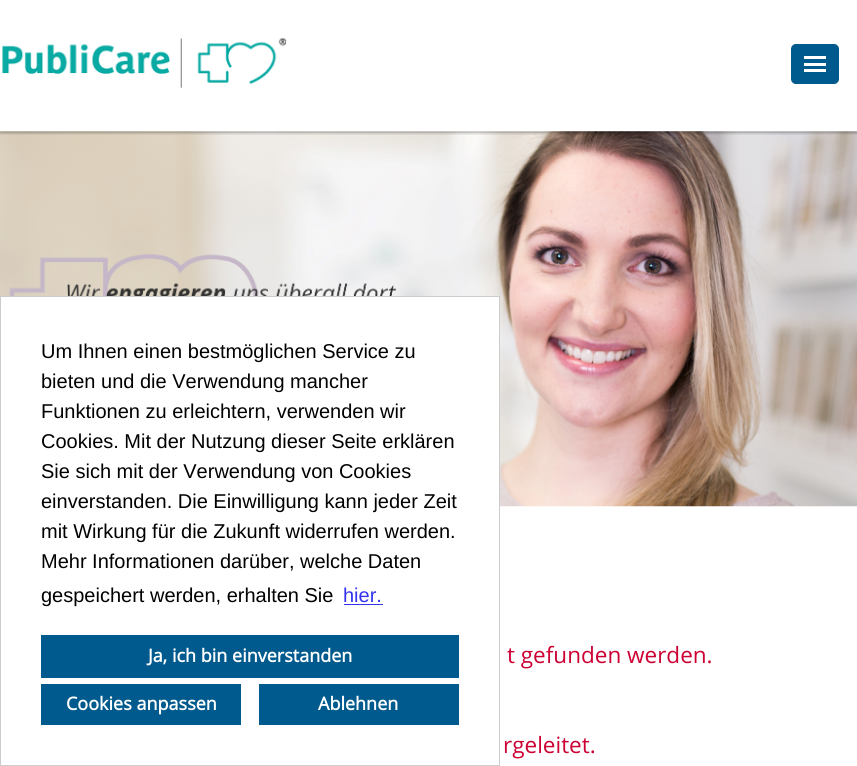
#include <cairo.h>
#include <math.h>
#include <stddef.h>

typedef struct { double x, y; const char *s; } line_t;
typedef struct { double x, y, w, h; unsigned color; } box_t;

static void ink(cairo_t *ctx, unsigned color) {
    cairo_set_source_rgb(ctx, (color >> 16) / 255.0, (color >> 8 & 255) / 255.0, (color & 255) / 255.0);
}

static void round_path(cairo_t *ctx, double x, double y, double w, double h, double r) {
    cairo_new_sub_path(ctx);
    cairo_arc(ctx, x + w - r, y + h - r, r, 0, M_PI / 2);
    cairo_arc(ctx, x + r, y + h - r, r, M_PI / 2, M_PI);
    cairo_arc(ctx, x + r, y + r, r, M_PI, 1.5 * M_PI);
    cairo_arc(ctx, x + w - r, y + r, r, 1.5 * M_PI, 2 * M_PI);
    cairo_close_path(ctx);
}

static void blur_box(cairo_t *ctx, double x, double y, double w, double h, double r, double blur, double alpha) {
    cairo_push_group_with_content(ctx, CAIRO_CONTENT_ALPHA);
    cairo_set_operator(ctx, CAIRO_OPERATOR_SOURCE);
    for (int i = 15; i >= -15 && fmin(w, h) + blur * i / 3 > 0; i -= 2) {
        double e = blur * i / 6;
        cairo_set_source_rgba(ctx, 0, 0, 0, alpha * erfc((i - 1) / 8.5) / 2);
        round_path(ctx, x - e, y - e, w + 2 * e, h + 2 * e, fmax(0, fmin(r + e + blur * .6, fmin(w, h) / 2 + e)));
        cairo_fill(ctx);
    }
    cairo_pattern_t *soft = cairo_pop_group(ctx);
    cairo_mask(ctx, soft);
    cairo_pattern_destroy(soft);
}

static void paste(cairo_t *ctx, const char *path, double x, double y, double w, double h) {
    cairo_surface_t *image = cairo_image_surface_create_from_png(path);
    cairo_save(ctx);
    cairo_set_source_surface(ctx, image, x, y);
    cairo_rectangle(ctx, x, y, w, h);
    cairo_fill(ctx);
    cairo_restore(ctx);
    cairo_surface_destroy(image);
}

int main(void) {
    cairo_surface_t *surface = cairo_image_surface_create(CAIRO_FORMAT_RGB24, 857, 766);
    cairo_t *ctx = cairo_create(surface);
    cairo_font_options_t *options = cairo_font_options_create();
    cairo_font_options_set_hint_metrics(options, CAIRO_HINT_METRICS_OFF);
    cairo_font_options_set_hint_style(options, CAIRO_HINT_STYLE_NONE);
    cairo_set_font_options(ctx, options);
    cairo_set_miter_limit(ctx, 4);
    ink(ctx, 0xFFFFFF);
    cairo_paint(ctx);
    paste(ctx, "media/2.png", 0, 131, 857, 376);
    ink(ctx, 0xFFFFFF);
    cairo_rectangle(ctx, 1, 297, 498, 210);
    cairo_fill(ctx);
    cairo_rectangle(ctx, 0.5, 296.5, 499, 469);
    ink(ctx, 0xCCCCCC);
    cairo_set_line_width(ctx, 1);
    cairo_stroke(ctx);
    cairo_select_font_face(ctx, "Liberation Sans", CAIRO_FONT_SLANT_NORMAL, CAIRO_FONT_WEIGHT_NORMAL);
    cairo_set_font_size(ctx, 20);
    ink(ctx, 0x000000);
    {
        static const line_t items[] = {
            {41, 358, "Um Ihnen einen bestmöglichen Service zu"},
            {41, 388, "bieten und die Verwendung mancher"},
            {41, 418, "Funktionen zu erleichtern, verwenden wir"},
            {41, 448, "Cookies. Mit der Nutzung dieser Seite erklären"},
            {41, 478, "Sie sich mit der Verwendung von Cookies"},
            {41, 508, "einverstanden. Die Einwilligung kann jeder Zeit"},
            {41, 538, "mit Wirkung für die Zukunft widerrufen werden."},
            {41, 568, "Mehr Informationen darüber, welche Daten"},
            {41, 602, "gespeichert werden, erhalten Sie"},
        };
        for (size_t i = 0; i < sizeof items / sizeof *items; i++) {
            cairo_move_to(ctx, items[i].x, items[i].y);
            cairo_show_text(ctx, items[i].s);
        }
    }
    ink(ctx, 0x3333F1);
    cairo_move_to(ctx, 343, 602);
    cairo_show_text(ctx, "hier.");
    cairo_rectangle(ctx, 344, 604, 39, 1);
    cairo_fill(ctx);
    ink(ctx, 0x005A8D);
    cairo_rectangle(ctx, 41, 635, 418, 43);
    cairo_fill(ctx);
    cairo_select_font_face(ctx, "Open Sans", CAIRO_FONT_SLANT_NORMAL, CAIRO_FONT_WEIGHT_BOLD);
    cairo_set_font_size(ctx, 18);
    ink(ctx, 0xFFFFFF);
    cairo_move_to(ctx, 148, 662);
    cairo_show_text(ctx, "Ja, ich bin einverstanden");
    ink(ctx, 0x005A8D);
    cairo_rectangle(ctx, 41, 684, 200, 41);
    cairo_fill(ctx);
    ink(ctx, 0xFFFFFF);
    cairo_move_to(ctx, 66, 710);
    cairo_show_text(ctx, "Cookies anpassen");
    ink(ctx, 0x005A8D);
    cairo_rectangle(ctx, 259, 684, 200, 41);
    cairo_fill(ctx);
    ink(ctx, 0xFFFFFF);
    cairo_move_to(ctx, 318, 710);
    cairo_show_text(ctx, "Ablehnen");
    cairo_rectangle(ctx, -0.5, -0.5, 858, 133);
    cairo_set_source_rgba(ctx, 0, 0, 0, 0.08);
    cairo_stroke(ctx);
    cairo_save(ctx);
    cairo_rectangle(ctx, 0, 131, 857, 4);
    cairo_clip(ctx);
    ink(ctx, 0x000000);
    blur_box(ctx, 0, 3, 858, 131, 0, 1, 0.16);
    cairo_restore(ctx);
    paste(ctx, "media/1.png", 2, 38, 285, 50);
    ink(ctx, 0x005A8D);
    round_path(ctx, 791, 44, 48, 40, 5);
    cairo_fill(ctx);
    {
        static const box_t items[] = {
            {804, 56, 22, 3, 0xFFFFFF},
            {804, 63, 22, 3, 0xFFFFFF},
            {804, 69, 22, 3, 0xFFFFFF},
        };
        for (size_t i = 0; i < sizeof items / sizeof *items; i++) {
            ink(ctx, items[i].color);
            cairo_rectangle(ctx, items[i].x, items[i].y, items[i].w, items[i].h);
            cairo_fill(ctx);
        }
    }
    cairo_select_font_face(ctx, "Open Sans", CAIRO_FONT_SLANT_NORMAL, CAIRO_FONT_WEIGHT_NORMAL);
    cairo_set_font_size(ctx, 22.5);
    ink(ctx, 0xCC0033);
    cairo_move_to(ctx, 507, 663);
    cairo_show_text(ctx, "t gefunden werden.");
    cairo_move_to(ctx, 503, 753);
    cairo_show_text(ctx, "rgeleitet.");
    cairo_surface_write_to_png(surface, "image.png");
    cairo_font_options_destroy(options);
    cairo_destroy(ctx);
    cairo_surface_destroy(surface);
    return 0;
}
